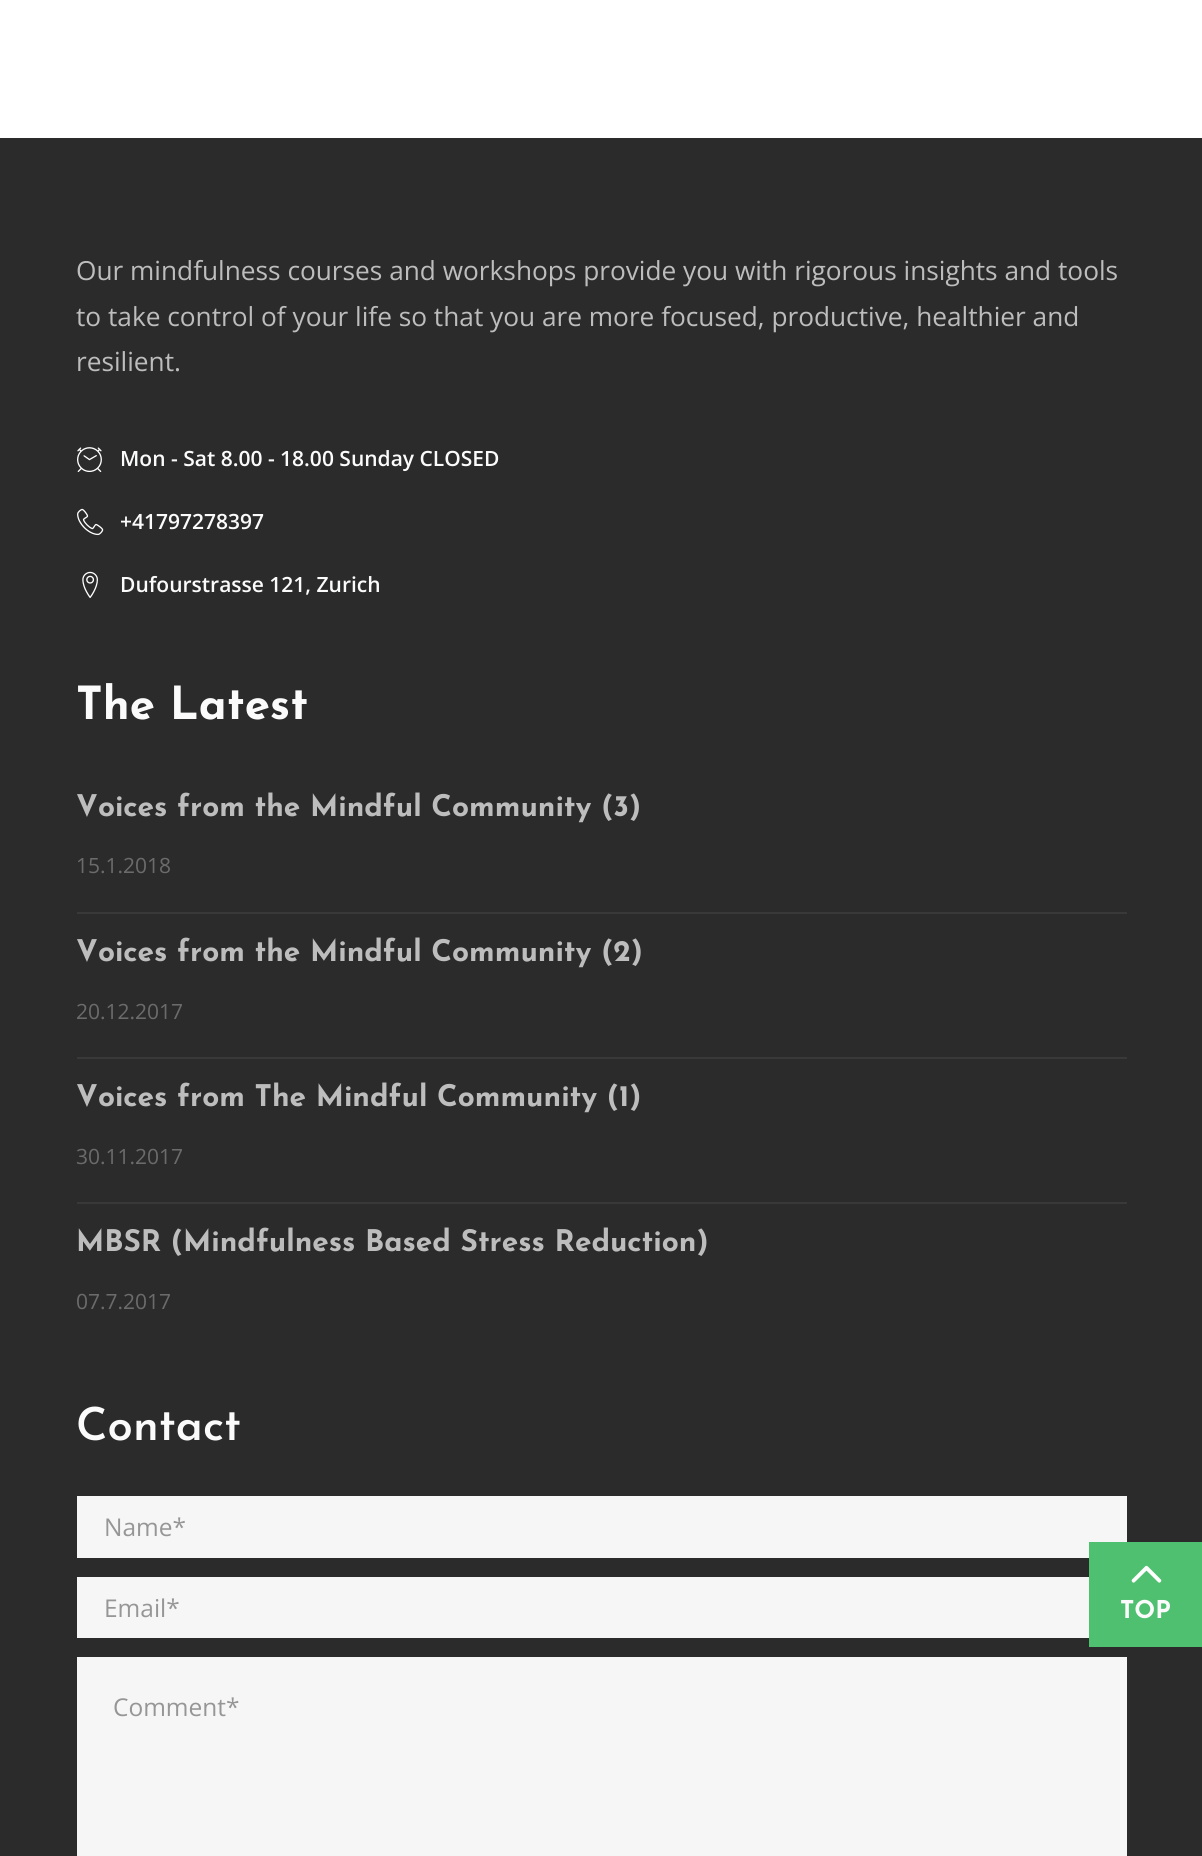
#include <cairo.h>
#include <math.h>
#include <stddef.h>

typedef struct { double x, y; const char *s; } line_t;

static void ink(cairo_t *ctx, unsigned color) {
    cairo_set_source_rgb(ctx, (color >> 16) / 255.0, (color >> 8 & 255) / 255.0, (color & 255) / 255.0);
}

static void paste(cairo_t *ctx, const char *path, double x, double y, double w, double h) {
    cairo_surface_t *image = cairo_image_surface_create_from_png(path);
    cairo_save(ctx);
    cairo_set_source_surface(ctx, image, x, y);
    cairo_rectangle(ctx, x, y, w, h);
    cairo_fill(ctx);
    cairo_restore(ctx);
    cairo_surface_destroy(image);
}

int main(void) {
    cairo_surface_t *surface = cairo_image_surface_create(CAIRO_FORMAT_RGB24, 1202, 1856);
    cairo_t *ctx = cairo_create(surface);
    cairo_font_options_t *options = cairo_font_options_create();
    cairo_font_options_set_hint_metrics(options, CAIRO_HINT_METRICS_OFF);
    cairo_font_options_set_hint_style(options, CAIRO_HINT_STYLE_NONE);
    cairo_set_font_options(ctx, options);
    cairo_set_miter_limit(ctx, 4);
    ink(ctx, 0xFFFFFF);
    cairo_paint(ctx);
    ink(ctx, 0x2A2B2A);
    cairo_rectangle(ctx, 0, 138, 1202, 1718);
    cairo_fill(ctx);
    cairo_select_font_face(ctx, "Open Sans", CAIRO_FONT_SLANT_NORMAL, CAIRO_FONT_WEIGHT_NORMAL);
    cairo_set_font_size(ctx, 26.25);
    ink(ctx, 0xBDBDBD);
    {
        static const line_t items[] = {
            {76, 280, "Our mindfulness courses and workshops provide you with rigorous insights and tools"},
            {76, 326, "to take control of your life so that you are more focused, productive, healthier and"},
            {76, 371, "resilient."},
        };
        for (size_t i = 0; i < sizeof items / sizeof *items; i++) {
            cairo_move_to(ctx, items[i].x, items[i].y);
            cairo_show_text(ctx, items[i].s);
        }
    }
    paste(ctx, "media/1.png", 77, 447, 25, 26);
    cairo_select_font_face(ctx, "Open Sans SemiBold", CAIRO_FONT_SLANT_NORMAL, CAIRO_FONT_WEIGHT_NORMAL);
    cairo_set_font_size(ctx, 21);
    ink(ctx, 0xFBFBFC);
    cairo_move_to(ctx, 120, 466);
    cairo_show_text(ctx, "Mon - Sat 8.00 - 18.00 Sunday CLOSED");
    paste(ctx, "media/2.png", 77, 508, 27, 28);
    cairo_move_to(ctx, 120, 529);
    cairo_show_text(ctx, "+41797278397");
    paste(ctx, "media/3.png", 82, 571, 16, 27);
    cairo_move_to(ctx, 120, 592);
    cairo_show_text(ctx, "Dufourstrasse 121, Zurich");
    cairo_select_font_face(ctx, "Josefin Sans", CAIRO_FONT_SLANT_NORMAL, CAIRO_FONT_WEIGHT_BOLD);
    cairo_set_font_size(ctx, 45.5);
    cairo_move_to(ctx, 76, 719);
    cairo_show_text(ctx, "The Latest");
    ink(ctx, 0x393939);
    cairo_rectangle(ctx, 77, 912, 1050, 2);
    cairo_fill(ctx);
    cairo_set_font_size(ctx, 29.75);
    ink(ctx, 0xBDBDBD);
    cairo_move_to(ctx, 76, 816);
    cairo_show_text(ctx, "Voices from the Mindful Community (3)");
    cairo_select_font_face(ctx, "Open Sans", CAIRO_FONT_SLANT_NORMAL, CAIRO_FONT_WEIGHT_NORMAL);
    cairo_set_font_size(ctx, 21);
    ink(ctx, 0x6B6B6B);
    cairo_move_to(ctx, 76, 873);
    cairo_show_text(ctx, "15.1.2018");
    ink(ctx, 0x393939);
    cairo_rectangle(ctx, 77, 1057, 1050, 2);
    cairo_fill(ctx);
    cairo_select_font_face(ctx, "Josefin Sans", CAIRO_FONT_SLANT_NORMAL, CAIRO_FONT_WEIGHT_BOLD);
    cairo_set_font_size(ctx, 29.75);
    ink(ctx, 0xBDBDBD);
    cairo_move_to(ctx, 76, 961);
    cairo_show_text(ctx, "Voices from the Mindful Community (2)");
    cairo_select_font_face(ctx, "Open Sans", CAIRO_FONT_SLANT_NORMAL, CAIRO_FONT_WEIGHT_NORMAL);
    cairo_set_font_size(ctx, 21);
    ink(ctx, 0x6B6B6B);
    cairo_move_to(ctx, 76, 1019);
    cairo_show_text(ctx, "20.12.2017");
    ink(ctx, 0x393939);
    cairo_rectangle(ctx, 77, 1202, 1050, 2);
    cairo_fill(ctx);
    cairo_select_font_face(ctx, "Josefin Sans", CAIRO_FONT_SLANT_NORMAL, CAIRO_FONT_WEIGHT_BOLD);
    cairo_set_font_size(ctx, 29.75);
    ink(ctx, 0xBDBDBD);
    cairo_move_to(ctx, 76, 1106);
    cairo_show_text(ctx, "Voices from The Mindful Community (1)");
    cairo_select_font_face(ctx, "Open Sans", CAIRO_FONT_SLANT_NORMAL, CAIRO_FONT_WEIGHT_NORMAL);
    cairo_set_font_size(ctx, 21);
    ink(ctx, 0x6B6B6B);
    cairo_move_to(ctx, 76, 1164);
    cairo_show_text(ctx, "30.11.2017");
    cairo_select_font_face(ctx, "Josefin Sans", CAIRO_FONT_SLANT_NORMAL, CAIRO_FONT_WEIGHT_BOLD);
    cairo_set_font_size(ctx, 29.75);
    ink(ctx, 0xBDBDBD);
    cairo_move_to(ctx, 76, 1251);
    cairo_show_text(ctx, "MBSR (Mindfulness Based Stress Reduction)");
    cairo_select_font_face(ctx, "Open Sans", CAIRO_FONT_SLANT_NORMAL, CAIRO_FONT_WEIGHT_NORMAL);
    cairo_set_font_size(ctx, 21);
    ink(ctx, 0x6B6B6B);
    cairo_move_to(ctx, 76, 1309);
    cairo_show_text(ctx, "07.7.2017");
    cairo_select_font_face(ctx, "Josefin Sans SemiBold", CAIRO_FONT_SLANT_NORMAL, CAIRO_FONT_WEIGHT_NORMAL);
    cairo_set_font_size(ctx, 45.5);
    ink(ctx, 0xFBFBFC);
    cairo_move_to(ctx, 76, 1440);
    cairo_show_text(ctx, "Contact");
    ink(ctx, 0xF6F6F6);
    cairo_rectangle(ctx, 77, 1496, 1050, 62);
    cairo_fill(ctx);
    cairo_select_font_face(ctx, "Open Sans", CAIRO_FONT_SLANT_NORMAL, CAIRO_FONT_WEIGHT_NORMAL);
    cairo_set_font_size(ctx, 24.5);
    ink(ctx, 0x969696);
    cairo_move_to(ctx, 104, 1536);
    cairo_show_text(ctx, "Name*");
    ink(ctx, 0xF6F6F6);
    cairo_rectangle(ctx, 77, 1577, 1012, 61);
    cairo_fill(ctx);
    ink(ctx, 0x969696);
    cairo_move_to(ctx, 104, 1617);
    cairo_show_text(ctx, "Email*");
    ink(ctx, 0xF6F6F6);
    cairo_rectangle(ctx, 77, 1657, 1050, 199);
    cairo_fill(ctx);
    ink(ctx, 0x969696);
    cairo_move_to(ctx, 113, 1716);
    cairo_show_text(ctx, "Comment*");
    ink(ctx, 0x4FBF70);
    cairo_rectangle(ctx, 1089, 1542, 113, 105);
    cairo_fill(ctx);
    paste(ctx, "media/4.png", 1131, 1565, 31, 18);
    cairo_select_font_face(ctx, "Josefin Sans", CAIRO_FONT_SLANT_NORMAL, CAIRO_FONT_WEIGHT_BOLD);
    ink(ctx, 0xFBFBFC);
    cairo_move_to(ctx, 1120, 1618);
    cairo_show_text(ctx, "TOP");
    cairo_surface_write_to_png(surface, "image.png");
    cairo_font_options_destroy(options);
    cairo_destroy(ctx);
    cairo_surface_destroy(surface);
    return 0;
}
